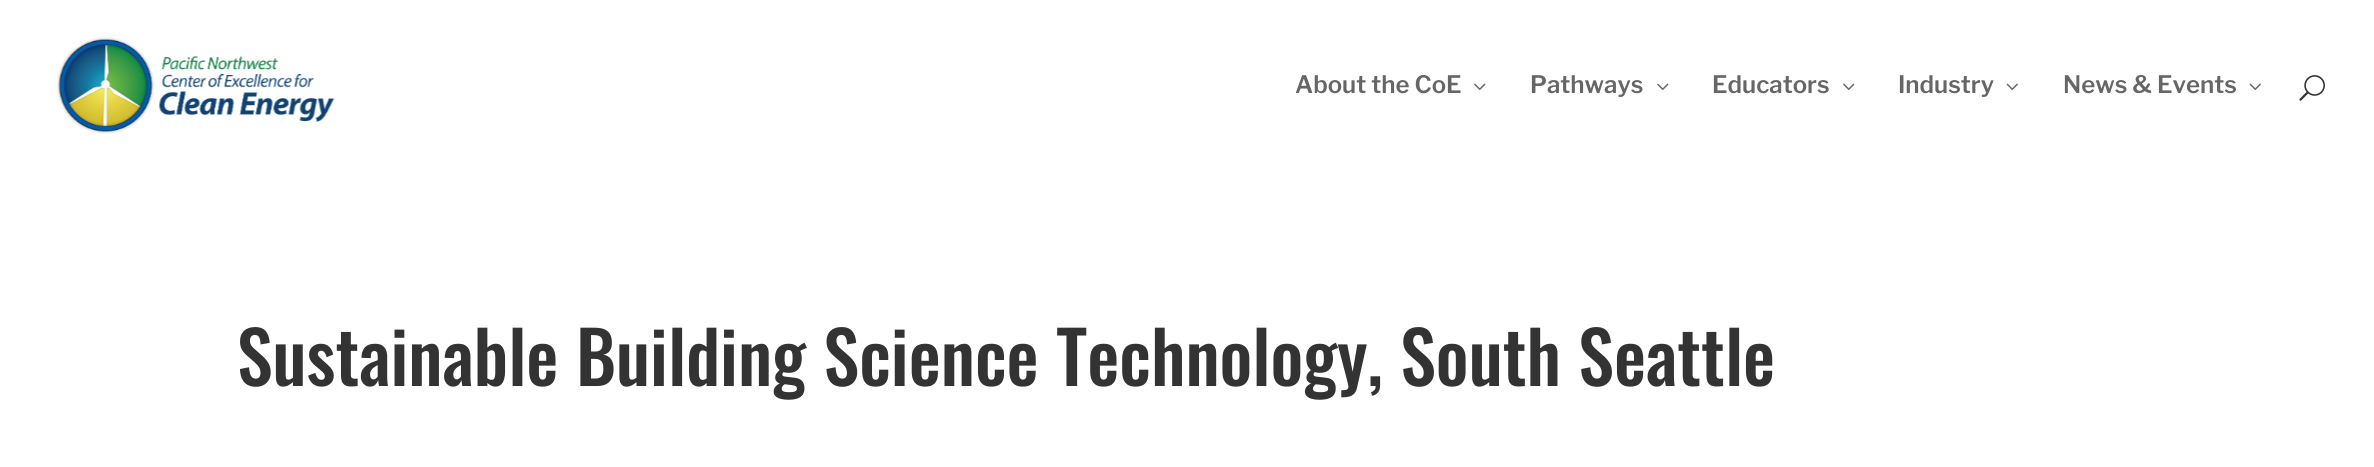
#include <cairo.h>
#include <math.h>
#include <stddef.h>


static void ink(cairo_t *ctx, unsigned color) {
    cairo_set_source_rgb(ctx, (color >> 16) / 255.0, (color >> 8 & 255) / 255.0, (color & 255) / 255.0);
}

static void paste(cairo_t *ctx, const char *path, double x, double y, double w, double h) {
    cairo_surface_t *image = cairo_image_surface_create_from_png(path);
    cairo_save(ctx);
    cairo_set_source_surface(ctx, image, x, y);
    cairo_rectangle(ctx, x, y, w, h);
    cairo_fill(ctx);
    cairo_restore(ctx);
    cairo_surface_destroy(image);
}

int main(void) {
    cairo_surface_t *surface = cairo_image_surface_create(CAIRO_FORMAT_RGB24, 2374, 467);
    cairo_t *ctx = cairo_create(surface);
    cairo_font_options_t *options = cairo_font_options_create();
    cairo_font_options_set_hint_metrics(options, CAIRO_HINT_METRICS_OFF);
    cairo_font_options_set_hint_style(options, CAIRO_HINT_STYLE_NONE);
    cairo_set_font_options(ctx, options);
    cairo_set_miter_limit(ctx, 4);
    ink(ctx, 0xFFFFFF);
    cairo_paint(ctx);
    paste(ctx, "media/1.png", 57, 37, 278, 97);
    cairo_select_font_face(ctx, "Libre Franklin Thin", CAIRO_FONT_SLANT_NORMAL, CAIRO_FONT_WEIGHT_NORMAL);
    cairo_set_font_size(ctx, 24);
    ink(ctx, 0x666666);
    cairo_move_to(ctx, 1295, 93);
    cairo_show_text(ctx, "About the CoE");
    paste(ctx, "media/2.png", 1474, 83, 12, 7);
    cairo_move_to(ctx, 1530, 93);
    cairo_show_text(ctx, "Pathways");
    paste(ctx, "media/2.png", 1657, 83, 12, 7);
    cairo_move_to(ctx, 1712, 93);
    cairo_show_text(ctx, "Educators");
    paste(ctx, "media/2.png", 1843, 83, 12, 7);
    cairo_move_to(ctx, 1898, 93);
    cairo_show_text(ctx, "Industry");
    paste(ctx, "media/3.png", 2006, 83, 12, 7);
    cairo_move_to(ctx, 2063, 93);
    cairo_show_text(ctx, "News & Events");
    paste(ctx, "media/3.png", 2249, 83, 12, 7);
    paste(ctx, "media/4.png", 2299, 75, 26, 26);
    cairo_select_font_face(ctx, "Oswald Medium", CAIRO_FONT_SLANT_NORMAL, CAIRO_FONT_WEIGHT_NORMAL);
    cairo_set_font_size(ctx, 72);
    ink(ctx, 0x333333);
    cairo_move_to(ctx, 237, 386);
    cairo_show_text(ctx, "Sustainable Building Science Technology, South Seattle");
    cairo_surface_write_to_png(surface, "image.png");
    cairo_font_options_destroy(options);
    cairo_destroy(ctx);
    cairo_surface_destroy(surface);
    return 0;
}
